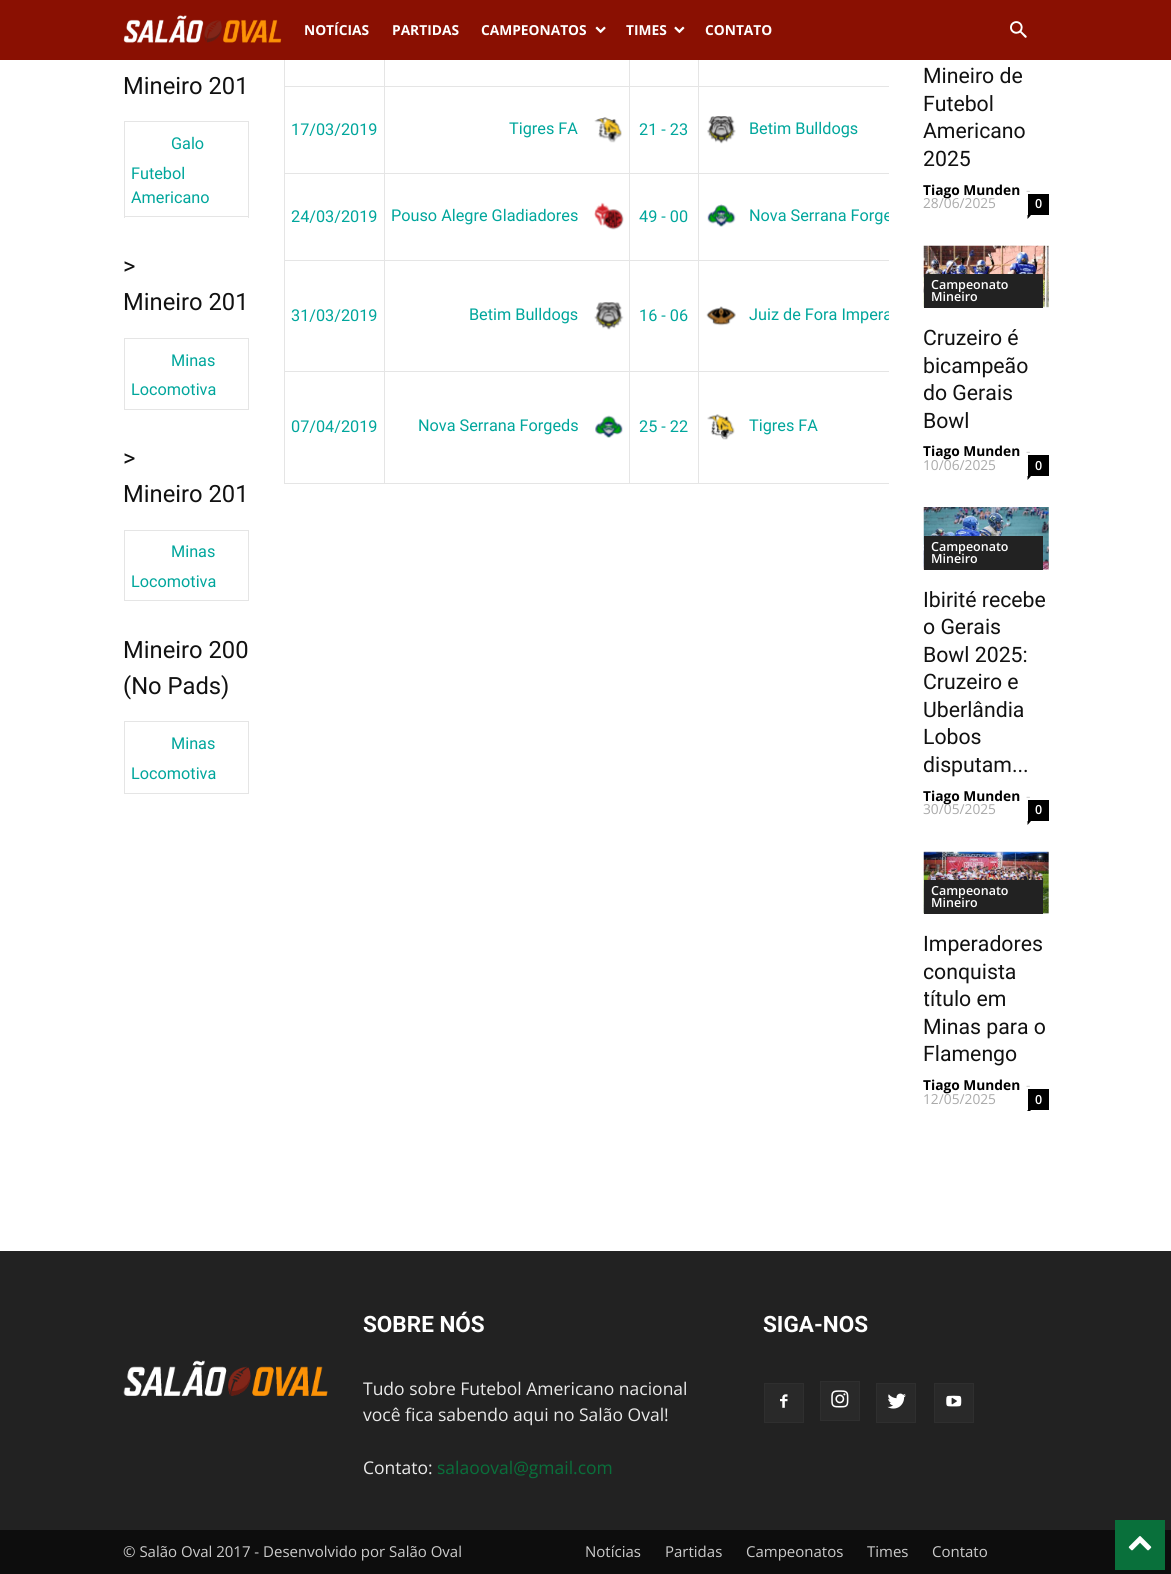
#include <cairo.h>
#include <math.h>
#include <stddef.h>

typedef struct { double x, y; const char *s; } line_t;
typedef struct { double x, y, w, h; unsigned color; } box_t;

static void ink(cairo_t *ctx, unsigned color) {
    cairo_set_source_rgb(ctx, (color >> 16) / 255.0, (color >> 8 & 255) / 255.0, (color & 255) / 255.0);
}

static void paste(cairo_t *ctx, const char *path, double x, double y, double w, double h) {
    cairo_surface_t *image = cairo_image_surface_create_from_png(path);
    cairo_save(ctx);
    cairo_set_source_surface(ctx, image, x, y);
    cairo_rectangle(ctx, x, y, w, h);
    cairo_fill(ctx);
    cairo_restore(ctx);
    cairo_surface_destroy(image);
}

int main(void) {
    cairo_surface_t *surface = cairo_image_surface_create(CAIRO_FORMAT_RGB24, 1171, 1574);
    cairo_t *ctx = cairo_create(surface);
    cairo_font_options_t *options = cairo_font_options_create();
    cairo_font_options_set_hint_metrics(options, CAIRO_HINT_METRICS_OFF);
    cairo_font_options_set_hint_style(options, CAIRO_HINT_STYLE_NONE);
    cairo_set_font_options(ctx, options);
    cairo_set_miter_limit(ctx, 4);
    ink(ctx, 0xFFFFFF);
    cairo_paint(ctx);
    ink(ctx, 0x8A1002);
    cairo_rectangle(ctx, 0, 0, 1171, 60);
    cairo_fill(ctx);
    paste(ctx, "media/1.png", 123, 15, 159, 28);
    cairo_select_font_face(ctx, "Open Sans", CAIRO_FONT_SLANT_NORMAL, CAIRO_FONT_WEIGHT_BOLD);
    cairo_set_font_size(ctx, 13.75);
    ink(ctx, 0xFFFFFF);
    {
        static const line_t items[] = {
            {304, 35, "NOTÍCIAS"},
            {392, 35, "PARTIDAS"},
            {481, 35, "CAMPEONATOS"},
        };
        for (size_t i = 0; i < sizeof items / sizeof *items; i++) {
            cairo_move_to(ctx, items[i].x, items[i].y);
            cairo_show_text(ctx, items[i].s);
        }
    }
    paste(ctx, "media/2.png", 595, 26, 11, 8);
    cairo_move_to(ctx, 626, 35);
    cairo_show_text(ctx, "TIMES");
    paste(ctx, "media/3.png", 674, 26, 11, 8);
    cairo_move_to(ctx, 705, 35);
    cairo_show_text(ctx, "CONTATO");
    paste(ctx, "media/4.png", 1010, 21, 17, 17);
    cairo_select_font_face(ctx, "Roboto", CAIRO_FONT_SLANT_NORMAL, CAIRO_FONT_WEIGHT_NORMAL);
    cairo_set_font_size(ctx, 23.75);
    ink(ctx, 0x111111);
    cairo_move_to(ctx, 123, 94);
    cairo_show_text(ctx, "Mineiro 201");
    {
        static const box_t items[] = {
            {124, 121, 125, 1, 0xE5E5E5},
            {248, 121, 1, 97, 0xE5E5E5},
            {124, 216, 125, 1, 0xE5E5E5},
            {124, 121, 1, 97, 0xE5E5E5},
        };
        for (size_t i = 0; i < sizeof items / sizeof *items; i++) {
            ink(ctx, items[i].color);
            cairo_rectangle(ctx, items[i].x, items[i].y, items[i].w, items[i].h);
            cairo_fill(ctx);
        }
    }
    cairo_set_font_size(ctx, 16.25);
    ink(ctx, 0x00A69C);
    {
        static const line_t items[] = {
            {171, 149, "Galo"},
            {131, 179, "Futebol"},
            {131, 203, "Americano"},
        };
        for (size_t i = 0; i < sizeof items / sizeof *items; i++) {
            cairo_move_to(ctx, items[i].x, items[i].y);
            cairo_show_text(ctx, items[i].s);
        }
    }
    cairo_set_font_size(ctx, 23.75);
    ink(ctx, 0x111111);
    cairo_move_to(ctx, 123, 274);
    cairo_show_text(ctx, ">");
    cairo_move_to(ctx, 123, 310);
    cairo_show_text(ctx, "Mineiro 201");
    {
        static const box_t items[] = {
            {124, 338, 125, 1, 0xE5E5E5},
            {248, 338, 1, 72, 0xE5E5E5},
            {124, 409, 125, 1, 0xE5E5E5},
            {124, 338, 1, 72, 0xE5E5E5},
        };
        for (size_t i = 0; i < sizeof items / sizeof *items; i++) {
            ink(ctx, items[i].color);
            cairo_rectangle(ctx, items[i].x, items[i].y, items[i].w, items[i].h);
            cairo_fill(ctx);
        }
    }
    cairo_set_font_size(ctx, 16.25);
    ink(ctx, 0x00A69C);
    cairo_move_to(ctx, 171, 366);
    cairo_show_text(ctx, "Minas");
    cairo_move_to(ctx, 131, 395);
    cairo_show_text(ctx, "Locomotiva");
    cairo_set_font_size(ctx, 23.75);
    ink(ctx, 0x111111);
    cairo_move_to(ctx, 123, 466);
    cairo_show_text(ctx, ">");
    cairo_move_to(ctx, 123, 502);
    cairo_show_text(ctx, "Mineiro 201");
    {
        static const box_t items[] = {
            {124, 530, 125, 1, 0xE5E5E5},
            {248, 530, 1, 71, 0xE5E5E5},
            {124, 600, 125, 1, 0xE5E5E5},
            {124, 530, 1, 71, 0xE5E5E5},
        };
        for (size_t i = 0; i < sizeof items / sizeof *items; i++) {
            ink(ctx, items[i].color);
            cairo_rectangle(ctx, items[i].x, items[i].y, items[i].w, items[i].h);
            cairo_fill(ctx);
        }
    }
    cairo_set_font_size(ctx, 16.25);
    ink(ctx, 0x00A69C);
    cairo_move_to(ctx, 171, 557);
    cairo_show_text(ctx, "Minas");
    cairo_move_to(ctx, 131, 587);
    cairo_show_text(ctx, "Locomotiva");
    cairo_set_font_size(ctx, 23.75);
    ink(ctx, 0x111111);
    cairo_move_to(ctx, 123, 658);
    cairo_show_text(ctx, "Mineiro 200");
    cairo_move_to(ctx, 123, 694);
    cairo_show_text(ctx, "(No Pads)");
    {
        static const box_t items[] = {
            {124, 721, 125, 1, 0xE5E5E5},
            {248, 721, 1, 73, 0xE5E5E5},
            {124, 793, 125, 1, 0xE5E5E5},
            {124, 721, 1, 73, 0xE5E5E5},
        };
        for (size_t i = 0; i < sizeof items / sizeof *items; i++) {
            ink(ctx, items[i].color);
            cairo_rectangle(ctx, items[i].x, items[i].y, items[i].w, items[i].h);
            cairo_fill(ctx);
        }
    }
    cairo_set_font_size(ctx, 16.25);
    ink(ctx, 0x00A69C);
    cairo_move_to(ctx, 171, 749);
    cairo_show_text(ctx, "Minas");
    cairo_move_to(ctx, 131, 779);
    cairo_show_text(ctx, "Locomotiva");
    {
        static const box_t items[] = {
            {284, 483, 605, 1, 0xE5E5E5},
            {284, 60, 1, 424, 0xE5E5E5},
            {698, 86, 191, 1, 0xE5E5E5},
            {698, 173, 191, 1, 0xE5E5E5},
            {698, 260, 191, 1, 0xE5E5E5},
            {698, 371, 191, 1, 0xE5E5E5},
            {698, 371, 1, 113, 0xE5E5E5},
            {629, 371, 70, 1, 0xE5E5E5},
            {698, 260, 1, 113, 0xE5E5E5},
            {629, 260, 70, 1, 0xE5E5E5},
            {698, 173, 1, 88, 0xE5E5E5},
            {629, 173, 70, 1, 0xE5E5E5},
            {698, 86, 1, 88, 0xE5E5E5},
            {629, 86, 70, 1, 0xE5E5E5},
            {629, 371, 1, 113, 0xE5E5E5},
            {384, 371, 246, 1, 0xE5E5E5},
            {629, 260, 1, 113, 0xE5E5E5},
            {384, 260, 246, 1, 0xE5E5E5},
            {629, 173, 1, 88, 0xE5E5E5},
            {384, 173, 246, 1, 0xE5E5E5},
            {629, 86, 1, 88, 0xE5E5E5},
            {384, 86, 246, 1, 0xE5E5E5},
            {384, 371, 1, 113, 0xE5E5E5},
            {284, 371, 101, 1, 0xE5E5E5},
            {384, 260, 1, 113, 0xE5E5E5},
            {284, 260, 101, 1, 0xE5E5E5},
            {384, 173, 1, 88, 0xE5E5E5},
            {284, 173, 101, 1, 0xE5E5E5},
            {384, 86, 1, 88, 0xE5E5E5},
            {284, 86, 101, 1, 0xE5E5E5},
            {384, 60, 1, 28, 0xE5E5E5},
            {629, 60, 1, 28, 0xE5E5E5},
            {698, 60, 1, 28, 0xE5E5E5},
        };
        for (size_t i = 0; i < sizeof items / sizeof *items; i++) {
            ink(ctx, items[i].color);
            cairo_rectangle(ctx, items[i].x, items[i].y, items[i].w, items[i].h);
            cairo_fill(ctx);
        }
    }
    ink(ctx, 0x00A69C);
    cairo_move_to(ctx, 291, 135);
    cairo_show_text(ctx, "17/03/2019");
    cairo_move_to(ctx, 509, 134);
    cairo_show_text(ctx, "Tigres FA");
    paste(ctx, "media/5.png", 594, 117, 28, 26);
    cairo_move_to(ctx, 639, 135);
    cairo_show_text(ctx, "21 - 23");
    paste(ctx, "media/6.png", 707, 116, 29, 28);
    {
        static const line_t items[] = {
            {749, 134, "Betim Bulldogs"},
            {291, 222, "24/03/2019"},
            {391, 221, "Pouso Alegre Gladiadores"},
        };
        for (size_t i = 0; i < sizeof items / sizeof *items; i++) {
            cairo_move_to(ctx, items[i].x, items[i].y);
            cairo_show_text(ctx, items[i].s);
        }
    }
    paste(ctx, "media/7.png", 594, 202, 30, 28);
    cairo_move_to(ctx, 639, 222);
    cairo_show_text(ctx, "49 - 00");
    paste(ctx, "media/8.png", 707, 204, 29, 23);
    cairo_save(ctx);
    cairo_rectangle(ctx, 284, 0, 605, 484);
    cairo_clip(ctx);
    cairo_move_to(ctx, 749, 221);
    cairo_show_text(ctx, "Nova Serrana Forge");
    cairo_restore(ctx);
    cairo_move_to(ctx, 291, 321);
    cairo_show_text(ctx, "31/03/2019");
    cairo_move_to(ctx, 469, 320);
    cairo_show_text(ctx, "Betim Bulldogs");
    paste(ctx, "media/9.png", 594, 302, 30, 28);
    cairo_move_to(ctx, 639, 321);
    cairo_show_text(ctx, "16 - 06");
    paste(ctx, "media/10.png", 706, 306, 30, 20);
    cairo_save(ctx);
    cairo_rectangle(ctx, 284, 0, 605, 484);
    cairo_clip(ctx);
    cairo_move_to(ctx, 749, 320);
    cairo_show_text(ctx, "Juiz de Fora Impera");
    cairo_restore(ctx);
    cairo_move_to(ctx, 291, 432);
    cairo_show_text(ctx, "07/04/2019");
    cairo_move_to(ctx, 418, 431);
    cairo_show_text(ctx, "Nova Serrana Forgeds");
    paste(ctx, "media/11.png", 595, 415, 28, 23);
    cairo_move_to(ctx, 639, 432);
    cairo_show_text(ctx, "25 - 22");
    paste(ctx, "media/12.png", 707, 414, 28, 26);
    cairo_move_to(ctx, 749, 431);
    cairo_show_text(ctx, "Tigres FA");
    cairo_set_font_size(ctx, 21.25);
    ink(ctx, 0x111111);
    {
        static const line_t items[] = {
            {923, 83, "Mineiro de"},
            {923, 111, "Futebol"},
            {923, 138, "Americano"},
            {923, 166, "2025"},
        };
        for (size_t i = 0; i < sizeof items / sizeof *items; i++) {
            cairo_move_to(ctx, items[i].x, items[i].y);
            cairo_show_text(ctx, items[i].s);
        }
    }
    cairo_select_font_face(ctx, "Open Sans", CAIRO_FONT_SLANT_NORMAL, CAIRO_FONT_WEIGHT_BOLD);
    cairo_set_font_size(ctx, 13.75);
    ink(ctx, 0x000000);
    cairo_move_to(ctx, 923, 195);
    cairo_show_text(ctx, "Tiago Munden");
    cairo_select_font_face(ctx, "Open Sans", CAIRO_FONT_SLANT_NORMAL, CAIRO_FONT_WEIGHT_NORMAL);
    ink(ctx, 0xCCCCCC);
    cairo_move_to(ctx, 1026, 195);
    cairo_show_text(ctx, "-");
    ink(ctx, 0xAAAAAA);
    cairo_move_to(ctx, 923, 208);
    cairo_show_text(ctx, "28/06/2025");
    ink(ctx, 0x000000);
    cairo_rectangle(ctx, 1028, 194, 21, 21);
    cairo_fill(ctx);
    cairo_select_font_face(ctx, "Open Sans SemiBold", CAIRO_FONT_SLANT_NORMAL, CAIRO_FONT_WEIGHT_NORMAL);
    cairo_set_font_size(ctx, 12.5);
    ink(ctx, 0xFFFFFF);
    cairo_move_to(ctx, 1035, 208);
    cairo_show_text(ctx, "0");
    ink(ctx, 0x000000);
    cairo_new_path(ctx);
    cairo_move_to(ctx, 1027.5, 215);
    cairo_line_to(ctx, 1031, 215);
    cairo_line_to(ctx, 1027.5, 219);
    cairo_close_path(ctx);
    cairo_fill(ctx);
    paste(ctx, "media/13.png", 923, 245, 126, 63);
    ink(ctx, 0x222222);
    cairo_rectangle(ctx, 924, 274, 119, 34);
    cairo_fill(ctx);
    ink(ctx, 0xFFFFFF);
    cairo_move_to(ctx, 931, 289);
    cairo_show_text(ctx, "Campeonato");
    cairo_move_to(ctx, 931, 301);
    cairo_show_text(ctx, "Mineiro");
    cairo_select_font_face(ctx, "Roboto", CAIRO_FONT_SLANT_NORMAL, CAIRO_FONT_WEIGHT_NORMAL);
    cairo_set_font_size(ctx, 21.25);
    ink(ctx, 0x111111);
    {
        static const line_t items[] = {
            {923, 345, "Cruzeiro é"},
            {923, 373, "bicampeão"},
            {923, 400, "do Gerais"},
            {923, 428, "Bowl"},
        };
        for (size_t i = 0; i < sizeof items / sizeof *items; i++) {
            cairo_move_to(ctx, items[i].x, items[i].y);
            cairo_show_text(ctx, items[i].s);
        }
    }
    cairo_select_font_face(ctx, "Open Sans", CAIRO_FONT_SLANT_NORMAL, CAIRO_FONT_WEIGHT_BOLD);
    cairo_set_font_size(ctx, 13.75);
    ink(ctx, 0x000000);
    cairo_move_to(ctx, 923, 456);
    cairo_show_text(ctx, "Tiago Munden");
    cairo_select_font_face(ctx, "Open Sans", CAIRO_FONT_SLANT_NORMAL, CAIRO_FONT_WEIGHT_NORMAL);
    ink(ctx, 0xCCCCCC);
    cairo_move_to(ctx, 1026, 456);
    cairo_show_text(ctx, "-");
    ink(ctx, 0xAAAAAA);
    cairo_move_to(ctx, 923, 470);
    cairo_show_text(ctx, "10/06/2025");
    ink(ctx, 0x000000);
    cairo_rectangle(ctx, 1028, 455, 21, 21);
    cairo_fill(ctx);
    cairo_select_font_face(ctx, "Open Sans SemiBold", CAIRO_FONT_SLANT_NORMAL, CAIRO_FONT_WEIGHT_NORMAL);
    cairo_set_font_size(ctx, 12.5);
    ink(ctx, 0xFFFFFF);
    cairo_move_to(ctx, 1035, 470);
    cairo_show_text(ctx, "0");
    ink(ctx, 0x000000);
    cairo_new_path(ctx);
    cairo_move_to(ctx, 1027.5, 476);
    cairo_line_to(ctx, 1031, 476);
    cairo_line_to(ctx, 1027.5, 480);
    cairo_close_path(ctx);
    cairo_fill(ctx);
    paste(ctx, "media/14.png", 923, 507, 126, 63);
    ink(ctx, 0x222222);
    cairo_rectangle(ctx, 924, 536, 119, 34);
    cairo_fill(ctx);
    ink(ctx, 0xFFFFFF);
    cairo_move_to(ctx, 931, 551);
    cairo_show_text(ctx, "Campeonato");
    cairo_move_to(ctx, 931, 563);
    cairo_show_text(ctx, "Mineiro");
    cairo_select_font_face(ctx, "Roboto", CAIRO_FONT_SLANT_NORMAL, CAIRO_FONT_WEIGHT_NORMAL);
    cairo_set_font_size(ctx, 21.25);
    ink(ctx, 0x111111);
    {
        static const line_t items[] = {
            {923, 607, "Ibirité recebe"},
            {923, 634, "o Gerais"},
            {923, 662, "Bowl 2025:"},
            {923, 689, "Cruzeiro e"},
            {923, 717, "Uberlândia"},
            {923, 744, "Lobos"},
            {923, 772, "disputam..."},
        };
        for (size_t i = 0; i < sizeof items / sizeof *items; i++) {
            cairo_move_to(ctx, items[i].x, items[i].y);
            cairo_show_text(ctx, items[i].s);
        }
    }
    cairo_select_font_face(ctx, "Open Sans", CAIRO_FONT_SLANT_NORMAL, CAIRO_FONT_WEIGHT_BOLD);
    cairo_set_font_size(ctx, 13.75);
    ink(ctx, 0x000000);
    cairo_move_to(ctx, 923, 801);
    cairo_show_text(ctx, "Tiago Munden");
    cairo_select_font_face(ctx, "Open Sans", CAIRO_FONT_SLANT_NORMAL, CAIRO_FONT_WEIGHT_NORMAL);
    ink(ctx, 0xCCCCCC);
    cairo_move_to(ctx, 1026, 801);
    cairo_show_text(ctx, "-");
    ink(ctx, 0xAAAAAA);
    cairo_move_to(ctx, 923, 814);
    cairo_show_text(ctx, "30/05/2025");
    ink(ctx, 0x000000);
    cairo_rectangle(ctx, 1028, 800, 21, 21);
    cairo_fill(ctx);
    cairo_select_font_face(ctx, "Open Sans SemiBold", CAIRO_FONT_SLANT_NORMAL, CAIRO_FONT_WEIGHT_NORMAL);
    cairo_set_font_size(ctx, 12.5);
    ink(ctx, 0xFFFFFF);
    cairo_move_to(ctx, 1035, 814);
    cairo_show_text(ctx, "0");
    ink(ctx, 0x000000);
    cairo_new_path(ctx);
    cairo_move_to(ctx, 1027.5, 821);
    cairo_line_to(ctx, 1031, 821);
    cairo_line_to(ctx, 1027.5, 825);
    cairo_close_path(ctx);
    cairo_fill(ctx);
    paste(ctx, "media/15.png", 923, 851, 126, 63);
    ink(ctx, 0x222222);
    cairo_rectangle(ctx, 924, 880, 119, 34);
    cairo_fill(ctx);
    ink(ctx, 0xFFFFFF);
    cairo_move_to(ctx, 931, 895);
    cairo_show_text(ctx, "Campeonato");
    cairo_move_to(ctx, 931, 907);
    cairo_show_text(ctx, "Mineiro");
    cairo_select_font_face(ctx, "Roboto", CAIRO_FONT_SLANT_NORMAL, CAIRO_FONT_WEIGHT_NORMAL);
    cairo_set_font_size(ctx, 21.25);
    ink(ctx, 0x111111);
    cairo_move_to(ctx, 923, 951);
    cairo_show_text(ctx, "Imperadores");
    cairo_move_to(ctx, 923, 979);
    cairo_show_text(ctx, "conquista");
    cairo_save(ctx);
    cairo_rectangle(ctx, 924, 0, 125, 1111);
    cairo_clip(ctx);
    cairo_move_to(ctx, 923, 1006);
    cairo_show_text(ctx, "título em");
    cairo_restore(ctx);
    cairo_move_to(ctx, 923, 1034);
    cairo_show_text(ctx, "Minas para o");
    cairo_move_to(ctx, 923, 1061);
    cairo_show_text(ctx, "Flamengo");
    cairo_select_font_face(ctx, "Open Sans", CAIRO_FONT_SLANT_NORMAL, CAIRO_FONT_WEIGHT_BOLD);
    cairo_set_font_size(ctx, 13.75);
    ink(ctx, 0x000000);
    cairo_move_to(ctx, 923, 1090);
    cairo_show_text(ctx, "Tiago Munden");
    cairo_select_font_face(ctx, "Open Sans", CAIRO_FONT_SLANT_NORMAL, CAIRO_FONT_WEIGHT_NORMAL);
    ink(ctx, 0xCCCCCC);
    cairo_move_to(ctx, 1026, 1090);
    cairo_show_text(ctx, "-");
    ink(ctx, 0xAAAAAA);
    cairo_move_to(ctx, 923, 1104);
    cairo_show_text(ctx, "12/05/2025");
    ink(ctx, 0x000000);
    cairo_rectangle(ctx, 1028, 1089, 21, 21);
    cairo_fill(ctx);
    cairo_select_font_face(ctx, "Open Sans SemiBold", CAIRO_FONT_SLANT_NORMAL, CAIRO_FONT_WEIGHT_NORMAL);
    cairo_set_font_size(ctx, 12.5);
    ink(ctx, 0xFFFFFF);
    cairo_move_to(ctx, 1035, 1104);
    cairo_show_text(ctx, "0");
    cairo_save(ctx);
    cairo_rectangle(ctx, 924, 0, 125, 1111);
    cairo_clip(ctx);
    ink(ctx, 0x000000);
    cairo_new_path(ctx);
    cairo_move_to(ctx, 1027.5, 1110);
    cairo_line_to(ctx, 1031, 1110);
    cairo_line_to(ctx, 1027.5, 1114);
    cairo_close_path(ctx);
    cairo_fill(ctx);
    cairo_restore(ctx);
    ink(ctx, 0x222222);
    cairo_rectangle(ctx, 0, 1251, 1171, 279);
    cairo_fill(ctx);
    cairo_select_font_face(ctx, "Roboto", CAIRO_FONT_SLANT_NORMAL, CAIRO_FONT_WEIGHT_BOLD);
    cairo_set_font_size(ctx, 22.5);
    ink(ctx, 0xFFFFFF);
    cairo_move_to(ctx, 363, 1332);
    cairo_show_text(ctx, "SOBRE NÓS");
    cairo_select_font_face(ctx, "Open Sans", CAIRO_FONT_SLANT_NORMAL, CAIRO_FONT_WEIGHT_NORMAL);
    cairo_set_font_size(ctx, 17.5);
    ink(ctx, 0xEAEAEA);
    {
        static const line_t items[] = {
            {363, 1395, "Tudo sobre Futebol Americano nacional"},
            {363, 1421, "você fica sabendo aqui no Salão Oval!"},
            {363, 1474, "Contato:"},
        };
        for (size_t i = 0; i < sizeof items / sizeof *items; i++) {
            cairo_move_to(ctx, items[i].x, items[i].y);
            cairo_show_text(ctx, items[i].s);
        }
    }
    ink(ctx, 0x09703B);
    cairo_move_to(ctx, 437, 1474);
    cairo_show_text(ctx, "salaooval@gmail.com");
    cairo_select_font_face(ctx, "Roboto", CAIRO_FONT_SLANT_NORMAL, CAIRO_FONT_WEIGHT_BOLD);
    cairo_set_font_size(ctx, 22.5);
    ink(ctx, 0xFFFFFF);
    cairo_move_to(ctx, 763, 1332);
    cairo_show_text(ctx, "SIGA-NOS");
    ink(ctx, 0x292929);
    cairo_rectangle(ctx, 765, 1384, 38, 38);
    cairo_fill(ctx);
    paste(ctx, "media/16.png", 780, 1394, 8, 14);
    cairo_rectangle(ctx, 764.5, 1383.5, 39, 39);
    ink(ctx, 0x2F2F2F);
    cairo_set_line_width(ctx, 1);
    cairo_stroke(ctx);
    ink(ctx, 0x292929);
    cairo_rectangle(ctx, 821, 1382, 38, 38);
    cairo_fill(ctx);
    paste(ctx, "media/17.png", 831, 1390, 18, 18);
    cairo_rectangle(ctx, 820.5, 1381.5, 39, 39);
    ink(ctx, 0x2F2F2F);
    cairo_stroke(ctx);
    ink(ctx, 0x292929);
    cairo_rectangle(ctx, 877, 1384, 38, 38);
    cairo_fill(ctx);
    paste(ctx, "media/18.png", 887, 1393, 19, 16);
    cairo_rectangle(ctx, 876.5, 1383.5, 39, 39);
    ink(ctx, 0x2F2F2F);
    cairo_stroke(ctx);
    ink(ctx, 0x292929);
    cairo_rectangle(ctx, 935, 1384, 38, 38);
    cairo_fill(ctx);
    paste(ctx, "media/19.png", 946, 1395, 16, 12);
    cairo_rectangle(ctx, 934.5, 1383.5, 39, 39);
    ink(ctx, 0x2F2F2F);
    cairo_stroke(ctx);
    paste(ctx, "media/20.png", 123, 1360, 205, 36);
    ink(ctx, 0x0D0D0D);
    cairo_rectangle(ctx, 0, 1530, 1171, 44);
    cairo_fill(ctx);
    cairo_select_font_face(ctx, "Open Sans", CAIRO_FONT_SLANT_NORMAL, CAIRO_FONT_WEIGHT_NORMAL);
    cairo_set_font_size(ctx, 15);
    ink(ctx, 0xCCCCCC);
    {
        static const line_t items[] = {
            {123, 1557, "© Salão Oval 2017 - Desenvolvido por Salão Oval"},
            {585, 1557, "Notícias"},
            {665, 1557, "Partidas"},
            {746, 1557, "Campeonatos"},
            {867, 1557, "Times"},
            {932, 1557, "Contato"},
        };
        for (size_t i = 0; i < sizeof items / sizeof *items; i++) {
            cairo_move_to(ctx, items[i].x, items[i].y);
            cairo_show_text(ctx, items[i].s);
        }
    }
    ink(ctx, 0x09703B);
    cairo_rectangle(ctx, 1115, 1520, 50, 50);
    cairo_fill(ctx);
    paste(ctx, "media/21.png", 1128, 1536, 24, 15);
    cairo_surface_write_to_png(surface, "image.png");
    cairo_font_options_destroy(options);
    cairo_destroy(ctx);
    cairo_surface_destroy(surface);
    return 0;
}
